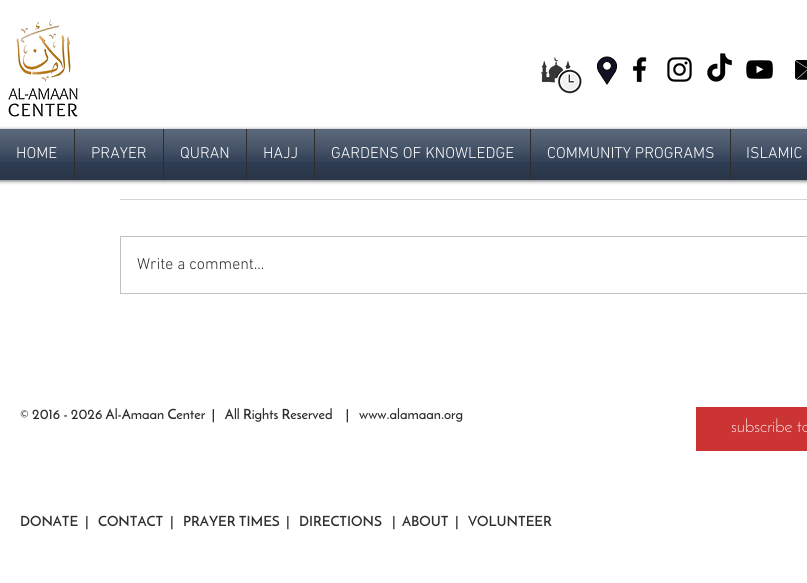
#include <cairo.h>
#include <math.h>
#include <stddef.h>

typedef struct { double x, y; const char *s; } line_t;

static void ink(cairo_t *ctx, unsigned color) {
    cairo_set_source_rgb(ctx, (color >> 16) / 255.0, (color >> 8 & 255) / 255.0, (color & 255) / 255.0);
}

static void round_path(cairo_t *ctx, double x, double y, double w, double h, double r) {
    cairo_new_sub_path(ctx);
    cairo_arc(ctx, x + w - r, y + h - r, r, 0, M_PI / 2);
    cairo_arc(ctx, x + r, y + h - r, r, M_PI / 2, M_PI);
    cairo_arc(ctx, x + r, y + r, r, M_PI, 1.5 * M_PI);
    cairo_arc(ctx, x + w - r, y + r, r, 1.5 * M_PI, 2 * M_PI);
    cairo_close_path(ctx);
}

static void blur_box(cairo_t *ctx, double x, double y, double w, double h, double r, double blur, double alpha) {
    cairo_push_group_with_content(ctx, CAIRO_CONTENT_ALPHA);
    cairo_set_operator(ctx, CAIRO_OPERATOR_SOURCE);
    for (int i = 15; i >= -15 && fmin(w, h) + blur * i / 3 > 0; i -= 2) {
        double e = blur * i / 6;
        cairo_set_source_rgba(ctx, 0, 0, 0, alpha * erfc((i - 1) / 8.5) / 2);
        round_path(ctx, x - e, y - e, w + 2 * e, h + 2 * e, fmax(0, fmin(r + e + blur * .6, fmin(w, h) / 2 + e)));
        cairo_fill(ctx);
    }
    cairo_pattern_t *soft = cairo_pop_group(ctx);
    cairo_mask(ctx, soft);
    cairo_pattern_destroy(soft);
}

static void paste(cairo_t *ctx, const char *path, double x, double y, double w, double h) {
    cairo_surface_t *image = cairo_image_surface_create_from_png(path);
    cairo_save(ctx);
    cairo_set_source_surface(ctx, image, x, y);
    cairo_rectangle(ctx, x, y, w, h);
    cairo_fill(ctx);
    cairo_restore(ctx);
    cairo_surface_destroy(image);
}

int main(void) {
    cairo_surface_t *surface = cairo_image_surface_create(CAIRO_FORMAT_RGB24, 807, 583);
    cairo_t *ctx = cairo_create(surface);
    cairo_font_options_t *options = cairo_font_options_create();
    cairo_font_options_set_hint_metrics(options, CAIRO_HINT_METRICS_OFF);
    cairo_font_options_set_hint_style(options, CAIRO_HINT_STYLE_NONE);
    cairo_set_font_options(ctx, options);
    cairo_set_miter_limit(ctx, 4);
    ink(ctx, 0xFFFFFF);
    cairo_paint(ctx);
    paste(ctx, "media/1.png", 8, 19, 70, 98);
    paste(ctx, "media/2.png", 540, 57, 42, 37);
    paste(ctx, "media/3.png", 596, 56, 22, 29);
    paste(ctx, "media/4.png", 632, 57, 15, 26);
    paste(ctx, "media/5.png", 667, 57, 25, 25);
    paste(ctx, "media/6.png", 707, 53, 25, 29);
    paste(ctx, "media/7.png", 746, 60, 28, 19);
    paste(ctx, "media/8.png", 795, 60, 12, 20);
    ink(ctx, 0x000000);
    blur_box(ctx, 0, 130, 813, 51, 0, 2, 0.6);
    ink(ctx, 0x324158);
    cairo_rectangle(ctx, 0, 129, 74, 51);
    cairo_fill(ctx);
    cairo_select_font_face(ctx, "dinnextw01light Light", CAIRO_FONT_SLANT_NORMAL, CAIRO_FONT_WEIGHT_NORMAL);
    cairo_set_font_size(ctx, 16);
    ink(ctx, 0xFFFFFF);
    cairo_move_to(ctx, 16, 158);
    cairo_show_text(ctx, "HOME");
    paste(ctx, "media/9.png", 0, 129, 74, 33);
    paste(ctx, "media/10.png", 0, 154, 74, 26);
    ink(ctx, 0x324158);
    cairo_rectangle(ctx, 75, 129, 88, 51);
    cairo_fill(ctx);
    ink(ctx, 0x2F2E2E);
    cairo_rectangle(ctx, 74, 129, 1, 51);
    cairo_fill(ctx);
    ink(ctx, 0xFFFFFF);
    cairo_move_to(ctx, 91, 158);
    cairo_show_text(ctx, "PRAYER");
    paste(ctx, "media/11.png", 75, 129, 88, 33);
    paste(ctx, "media/12.png", 75, 154, 88, 26);
    ink(ctx, 0x324158);
    cairo_rectangle(ctx, 164, 129, 82, 51);
    cairo_fill(ctx);
    ink(ctx, 0x2F2E2E);
    cairo_rectangle(ctx, 163, 129, 1, 51);
    cairo_fill(ctx);
    ink(ctx, 0xFFFFFF);
    cairo_move_to(ctx, 180, 158);
    cairo_show_text(ctx, "QURAN");
    paste(ctx, "media/13.png", 164, 129, 82, 33);
    paste(ctx, "media/14.png", 164, 154, 82, 26);
    ink(ctx, 0x324158);
    cairo_rectangle(ctx, 247, 129, 67, 51);
    cairo_fill(ctx);
    ink(ctx, 0x2F2E2E);
    cairo_rectangle(ctx, 246, 129, 1, 51);
    cairo_fill(ctx);
    ink(ctx, 0xFFFFFF);
    cairo_move_to(ctx, 263, 158);
    cairo_show_text(ctx, "HAJJ");
    paste(ctx, "media/15.png", 247, 129, 67, 33);
    paste(ctx, "media/16.png", 247, 154, 67, 26);
    ink(ctx, 0x324158);
    cairo_rectangle(ctx, 315, 129, 215, 51);
    cairo_fill(ctx);
    ink(ctx, 0x2F2E2E);
    cairo_rectangle(ctx, 314, 129, 1, 51);
    cairo_fill(ctx);
    ink(ctx, 0xFFFFFF);
    cairo_move_to(ctx, 331, 158);
    cairo_show_text(ctx, "GARDENS OF KNOWLEDGE");
    paste(ctx, "media/17.png", 315, 129, 215, 33);
    paste(ctx, "media/18.png", 315, 154, 215, 26);
    ink(ctx, 0x324158);
    cairo_rectangle(ctx, 531, 129, 199, 51);
    cairo_fill(ctx);
    ink(ctx, 0x2F2E2E);
    cairo_rectangle(ctx, 530, 129, 1, 51);
    cairo_fill(ctx);
    ink(ctx, 0xFFFFFF);
    cairo_move_to(ctx, 547, 158);
    cairo_show_text(ctx, "COMMUNITY PROGRAMS");
    paste(ctx, "media/19.png", 531, 129, 199, 33);
    paste(ctx, "media/20.png", 531, 154, 199, 26);
    ink(ctx, 0x324158);
    cairo_rectangle(ctx, 731, 129, 76, 51);
    cairo_fill(ctx);
    ink(ctx, 0x2F2E2E);
    cairo_rectangle(ctx, 730, 129, 1, 51);
    cairo_fill(ctx);
    ink(ctx, 0xFFFFFF);
    cairo_move_to(ctx, 746, 158);
    cairo_show_text(ctx, "ISLAMIC");
    paste(ctx, "media/21.png", 731, 129, 76, 33);
    paste(ctx, "media/22.png", 731, 154, 76, 26);
    ink(ctx, 0xD5D5D5);
    cairo_rectangle(ctx, 120, 199, 687, 1);
    cairo_fill(ctx);
    cairo_rectangle(ctx, 120.5, 236.5, 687, 57);
    ink(ctx, 0xC1C0C0);
    cairo_set_line_width(ctx, 1);
    cairo_stroke(ctx);
    ink(ctx, 0x2F2E2E);
    cairo_move_to(ctx, 137, 269);
    cairo_show_text(ctx, "Write a comment...");
    cairo_select_font_face(ctx, "Josefin Sans SemiBold", CAIRO_FONT_SLANT_NORMAL, CAIRO_FONT_WEIGHT_NORMAL);
    cairo_set_font_size(ctx, 14);
    cairo_move_to(ctx, 20, 419);
    cairo_show_text(ctx, "© 2016 - 2026 Al-Amaan Center  |   All Rights Reserved    |");
    cairo_move_to(ctx, 359, 419);
    cairo_show_text(ctx, "www.alamaan.org");
    ink(ctx, 0xCC3333);
    cairo_rectangle(ctx, 696, 407, 111, 44);
    cairo_fill(ctx);
    cairo_select_font_face(ctx, "Josefin Sans Light", CAIRO_FONT_SLANT_NORMAL, CAIRO_FONT_WEIGHT_NORMAL);
    cairo_set_font_size(ctx, 18);
    ink(ctx, 0xFFFFFF);
    cairo_move_to(ctx, 731, 432);
    cairo_show_text(ctx, "subscribe to");
    cairo_select_font_face(ctx, "Josefin Sans SemiBold", CAIRO_FONT_SLANT_NORMAL, CAIRO_FONT_WEIGHT_NORMAL);
    cairo_set_font_size(ctx, 14);
    ink(ctx, 0x2F2E2E);
    {
        static const line_t items[] = {
            {20, 526, "DONATE"},
            {85, 526, "|"},
            {98, 526, "CONTACT"},
            {170, 526, "|"},
            {183, 526, "PRAYER TIMES"},
            {286, 526, "|"},
            {299, 526, "DIRECTIONS"},
            {392, 526, "|"},
            {402, 526, "ABOUT"},
            {455, 526, "|"},
            {468, 526, "VOLUNTEER"},
        };
        for (size_t i = 0; i < sizeof items / sizeof *items; i++) {
            cairo_move_to(ctx, items[i].x, items[i].y);
            cairo_show_text(ctx, items[i].s);
        }
    }
    cairo_surface_write_to_png(surface, "image.png");
    cairo_font_options_destroy(options);
    cairo_destroy(ctx);
    cairo_surface_destroy(surface);
    return 0;
}
